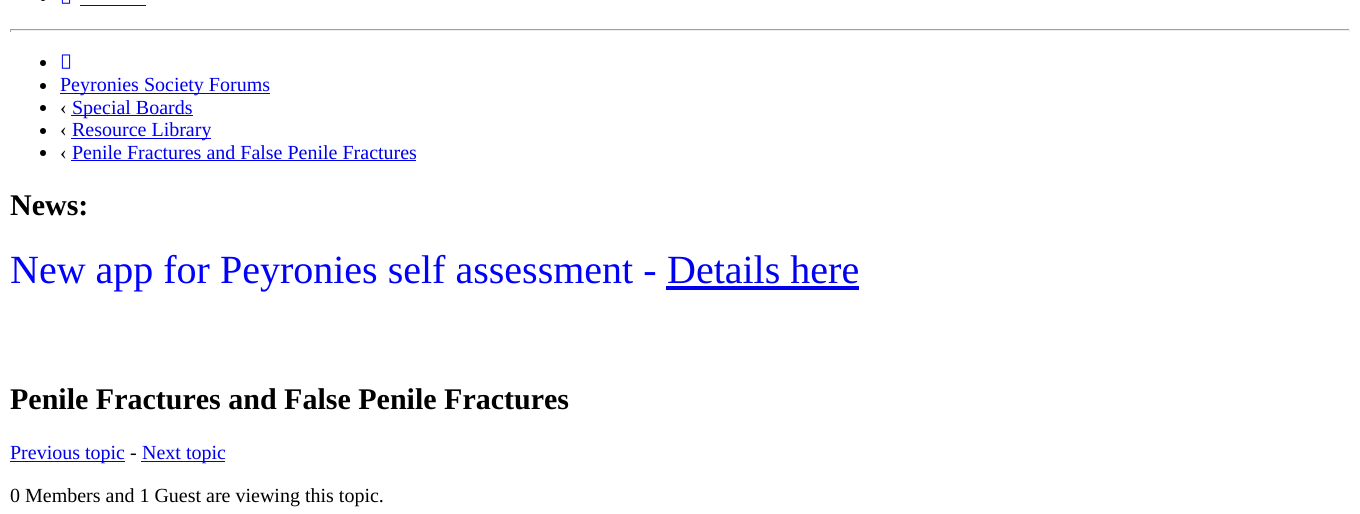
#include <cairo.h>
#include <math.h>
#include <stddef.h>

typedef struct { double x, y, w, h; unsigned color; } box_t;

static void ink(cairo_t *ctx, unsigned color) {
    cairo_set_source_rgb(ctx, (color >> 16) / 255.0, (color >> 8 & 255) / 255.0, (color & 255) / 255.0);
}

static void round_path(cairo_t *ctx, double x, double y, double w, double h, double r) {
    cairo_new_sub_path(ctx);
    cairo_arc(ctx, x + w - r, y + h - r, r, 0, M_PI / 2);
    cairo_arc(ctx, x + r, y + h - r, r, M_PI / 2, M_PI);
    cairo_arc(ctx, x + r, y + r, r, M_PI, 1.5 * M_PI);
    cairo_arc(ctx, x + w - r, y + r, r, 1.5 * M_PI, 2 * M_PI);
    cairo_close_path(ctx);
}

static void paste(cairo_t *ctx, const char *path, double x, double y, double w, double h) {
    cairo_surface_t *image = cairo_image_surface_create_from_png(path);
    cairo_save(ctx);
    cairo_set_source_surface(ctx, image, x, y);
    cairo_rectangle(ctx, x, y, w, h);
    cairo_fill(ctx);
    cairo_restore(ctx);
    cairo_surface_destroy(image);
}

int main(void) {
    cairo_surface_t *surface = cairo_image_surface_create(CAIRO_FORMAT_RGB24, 1360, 514);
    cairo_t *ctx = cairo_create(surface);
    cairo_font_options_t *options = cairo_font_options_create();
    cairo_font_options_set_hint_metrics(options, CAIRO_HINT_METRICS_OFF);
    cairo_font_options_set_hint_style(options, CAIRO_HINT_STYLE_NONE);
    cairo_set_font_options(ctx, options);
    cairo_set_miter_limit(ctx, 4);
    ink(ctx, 0xFFFFFF);
    cairo_paint(ctx);
    ink(ctx, 0x000000);
    round_path(ctx, 40, -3, 6, 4, 3);
    cairo_fill(ctx);
    paste(ctx, "media/1.png", 61, 0, 10, 4);
    {
        static const box_t items[] = {
            {80, 5, 66, 1, 0x0000EE},
            {10, 29, 1340, 1, 0x9F9F9F},
            {1349, 29, 1, 3, 0xEEEEEE},
            {10, 30, 1340, 1, 0xEEEEEE},
            {10, 29, 1, 3, 0x9F9F9F},
        };
        for (size_t i = 0; i < sizeof items / sizeof *items; i++) {
            ink(ctx, items[i].color);
            cairo_rectangle(ctx, items[i].x, items[i].y, items[i].w, items[i].h);
            cairo_fill(ctx);
        }
    }
    ink(ctx, 0x000000);
    cairo_arc(ctx, 43, 63, 3, 0, 2 * M_PI);
    cairo_fill(ctx);
    paste(ctx, "media/2.png", 61, 54, 10, 15);
    cairo_arc(ctx, 43, 86, 3, 0, 2 * M_PI);
    cairo_fill(ctx);
    ink(ctx, 0x0000EE);
    cairo_rectangle(ctx, 60, 93, 210, 1);
    cairo_fill(ctx);
    cairo_select_font_face(ctx, "Liberation Serif", CAIRO_FONT_SLANT_NORMAL, CAIRO_FONT_WEIGHT_NORMAL);
    cairo_set_font_size(ctx, 20);
    cairo_move_to(ctx, 60, 91);
    cairo_show_text(ctx, "Peyronies Society Forums");
    ink(ctx, 0x000000);
    cairo_new_path(ctx);
    cairo_arc(ctx, 43, 108, 3, 0, 2 * M_PI);
    cairo_fill(ctx);
    cairo_move_to(ctx, 60, 114);
    cairo_show_text(ctx, "‹");
    ink(ctx, 0x0000EE);
    cairo_rectangle(ctx, 71, 115, 122, 1);
    cairo_fill(ctx);
    cairo_move_to(ctx, 72, 114);
    cairo_show_text(ctx, "Special Boards");
    ink(ctx, 0x000000);
    cairo_new_path(ctx);
    cairo_arc(ctx, 43, 131, 3, 0, 2 * M_PI);
    cairo_fill(ctx);
    cairo_move_to(ctx, 60, 136);
    cairo_show_text(ctx, "‹");
    ink(ctx, 0x0000EE);
    cairo_rectangle(ctx, 71, 138, 140, 1);
    cairo_fill(ctx);
    cairo_move_to(ctx, 72, 136);
    cairo_show_text(ctx, "Resource Library");
    ink(ctx, 0x000000);
    cairo_new_path(ctx);
    cairo_arc(ctx, 43, 153, 3, 0, 2 * M_PI);
    cairo_fill(ctx);
    cairo_move_to(ctx, 60, 159);
    cairo_show_text(ctx, "‹");
    ink(ctx, 0x0000EE);
    cairo_move_to(ctx, 72, 159);
    cairo_show_text(ctx, "Penile Fractures and False Penile Fractures");
    cairo_rectangle(ctx, 71, 160, 345, 1);
    cairo_fill(ctx);
    cairo_select_font_face(ctx, "Liberation Serif", CAIRO_FONT_SLANT_NORMAL, CAIRO_FONT_WEIGHT_BOLD);
    cairo_set_font_size(ctx, 30);
    ink(ctx, 0x000000);
    cairo_move_to(ctx, 10, 215);
    cairo_show_text(ctx, "News:");
    cairo_select_font_face(ctx, "Liberation Serif", CAIRO_FONT_SLANT_NORMAL, CAIRO_FONT_WEIGHT_NORMAL);
    cairo_set_font_size(ctx, 40);
    ink(ctx, 0x0000FF);
    cairo_move_to(ctx, 10, 283);
    cairo_show_text(ctx, "New app for Peyronies self assessment -");
    ink(ctx, 0x0000EE);
    cairo_move_to(ctx, 667, 283);
    cairo_show_text(ctx, "Details here");
    cairo_rectangle(ctx, 666, 286, 193, 4);
    cairo_fill(ctx);
    cairo_select_font_face(ctx, "Liberation Serif", CAIRO_FONT_SLANT_NORMAL, CAIRO_FONT_WEIGHT_BOLD);
    cairo_set_font_size(ctx, 30);
    ink(ctx, 0x000000);
    cairo_move_to(ctx, 10, 409);
    cairo_show_text(ctx, "Penile Fractures and False Penile Fractures");
    ink(ctx, 0x0000EE);
    cairo_rectangle(ctx, 10, 461, 115, 1);
    cairo_fill(ctx);
    cairo_select_font_face(ctx, "Liberation Serif", CAIRO_FONT_SLANT_NORMAL, CAIRO_FONT_WEIGHT_NORMAL);
    cairo_set_font_size(ctx, 20);
    cairo_move_to(ctx, 10, 459);
    cairo_show_text(ctx, "Previous topic");
    ink(ctx, 0x000000);
    cairo_move_to(ctx, 130, 459);
    cairo_show_text(ctx, "-");
    ink(ctx, 0x0000EE);
    cairo_rectangle(ctx, 141, 461, 84, 1);
    cairo_fill(ctx);
    cairo_move_to(ctx, 142, 459);
    cairo_show_text(ctx, "Next topic");
    ink(ctx, 0x000000);
    cairo_move_to(ctx, 10, 502);
    cairo_show_text(ctx, "0 Members and 1 Guest are viewing this topic.");
    cairo_surface_write_to_png(surface, "image.png");
    cairo_font_options_destroy(options);
    cairo_destroy(ctx);
    cairo_surface_destroy(surface);
    return 0;
}
